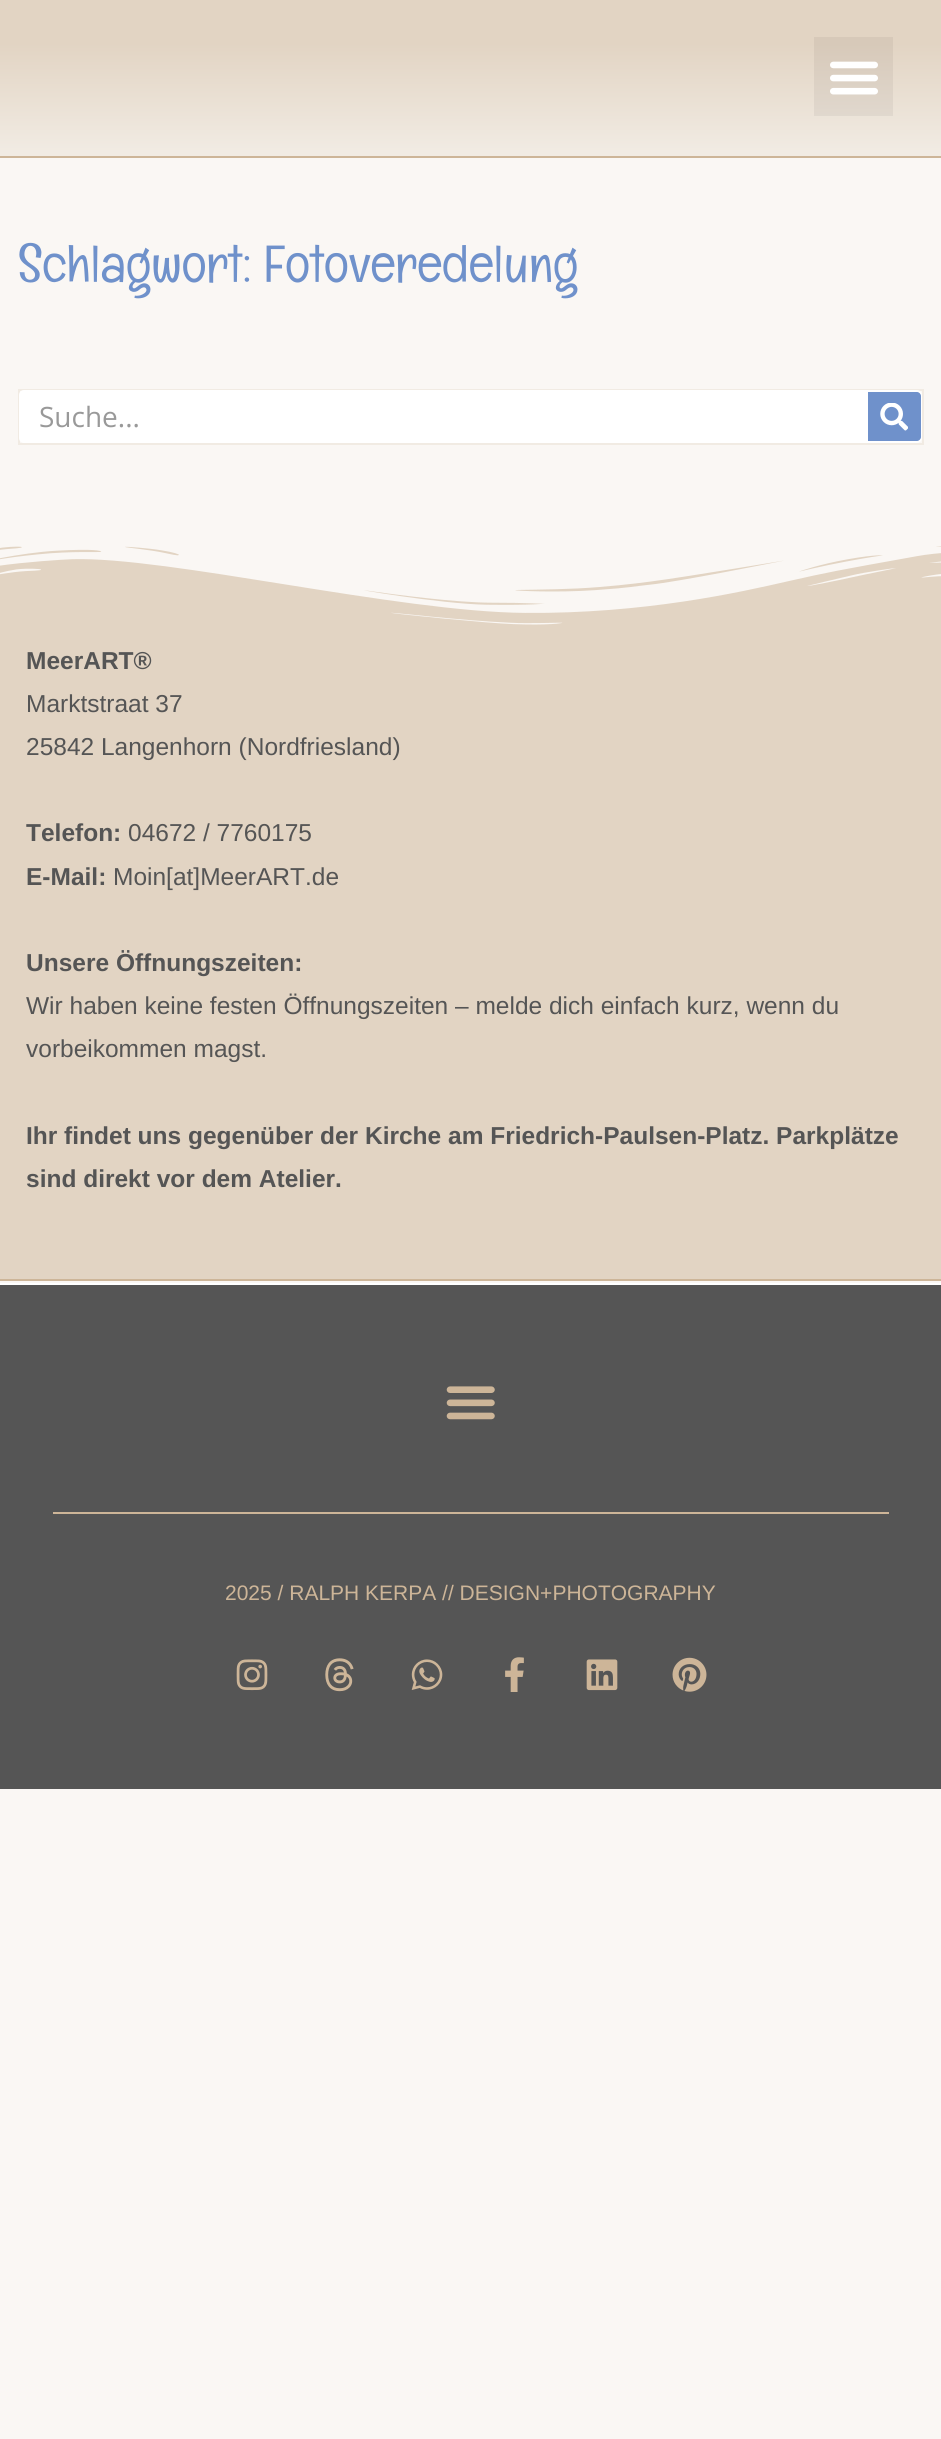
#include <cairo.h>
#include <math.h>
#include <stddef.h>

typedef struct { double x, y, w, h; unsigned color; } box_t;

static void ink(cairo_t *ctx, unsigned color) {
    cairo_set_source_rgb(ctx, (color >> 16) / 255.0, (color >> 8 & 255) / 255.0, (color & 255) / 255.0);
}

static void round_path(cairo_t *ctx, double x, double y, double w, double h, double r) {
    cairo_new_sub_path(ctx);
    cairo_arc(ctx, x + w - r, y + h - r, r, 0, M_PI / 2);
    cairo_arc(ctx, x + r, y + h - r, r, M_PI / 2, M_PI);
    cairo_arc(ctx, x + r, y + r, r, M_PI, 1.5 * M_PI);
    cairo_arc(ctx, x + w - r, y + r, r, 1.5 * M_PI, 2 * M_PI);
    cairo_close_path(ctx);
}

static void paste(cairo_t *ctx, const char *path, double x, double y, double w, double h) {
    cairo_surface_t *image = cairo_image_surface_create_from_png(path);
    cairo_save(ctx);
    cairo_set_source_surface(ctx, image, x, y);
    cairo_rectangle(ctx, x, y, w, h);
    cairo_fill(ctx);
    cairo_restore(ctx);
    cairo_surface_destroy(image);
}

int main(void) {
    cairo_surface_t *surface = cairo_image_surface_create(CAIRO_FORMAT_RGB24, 941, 2439);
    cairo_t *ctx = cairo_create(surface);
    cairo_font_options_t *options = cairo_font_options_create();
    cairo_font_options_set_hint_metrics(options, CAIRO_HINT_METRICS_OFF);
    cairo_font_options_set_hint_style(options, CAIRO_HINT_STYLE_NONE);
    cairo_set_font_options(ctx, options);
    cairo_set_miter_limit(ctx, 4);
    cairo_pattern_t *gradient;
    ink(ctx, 0xFAF7F4);
    cairo_paint(ctx);
    gradient = cairo_pattern_create_linear(471, 0, 471, 156);
    cairo_pattern_add_color_stop_rgba(gradient, 0.28, 0.886, 0.831, 0.765, 1);
    cairo_pattern_add_color_stop_rgba(gradient, 0.97, 0.945, 0.922, 0.89, 1);
    cairo_set_source(ctx, gradient);
    cairo_pattern_destroy(gradient);
    cairo_rectangle(ctx, 0, 0, 941, 156);
    cairo_fill(ctx);
    gradient = cairo_pattern_create_linear(471, 0, 471, 156);
    cairo_pattern_add_color_stop_rgba(gradient, 0.28, 0.843, 0.788, 0.725, 1);
    cairo_pattern_add_color_stop_rgba(gradient, 0.97, 0.898, 0.875, 0.847, 1);
    cairo_set_source(ctx, gradient);
    cairo_pattern_destroy(gradient);
    cairo_rectangle(ctx, 814, 37, 79, 79);
    cairo_fill(ctx);
    ink(ctx, 0xCDB598);
    cairo_rectangle(ctx, 0, 156, 941, 2);
    cairo_fill(ctx);
    paste(ctx, "media/1.png", 830, 61, 48, 34);
    cairo_select_font_face(ctx, "Englebert", CAIRO_FONT_SLANT_NORMAL, CAIRO_FONT_WEIGHT_NORMAL);
    cairo_set_font_size(ctx, 52.5);
    ink(ctx, 0x6F91CB);
    cairo_move_to(ctx, 18, 282);
    cairo_show_text(ctx, "Schlagwort: Fotoveredelung");
    cairo_rectangle(ctx, 19, 390, 904, 54);
    ink(ctx, 0xF1EBE3);
    cairo_stroke(ctx);
    ink(ctx, 0xFFFFFF);
    round_path(ctx, 19, 390, 903, 53, 5);
    cairo_fill(ctx);
    cairo_select_font_face(ctx, "Open Sans", CAIRO_FONT_SLANT_NORMAL, CAIRO_FONT_WEIGHT_NORMAL);
    cairo_set_font_size(ctx, 28);
    ink(ctx, 0x999999);
    cairo_move_to(ctx, 39, 427);
    cairo_show_text(ctx, "Suche...");
    ink(ctx, 0x6F91CB);
    cairo_new_path(ctx);
    cairo_move_to(ctx, 868, 392);
    cairo_line_to(ctx, 917, 392);
    cairo_curve_to(ctx, 919, 392, 921, 394, 921, 396);
    cairo_line_to(ctx, 921, 437);
    cairo_curve_to(ctx, 921, 439, 919, 441, 917, 441);
    cairo_line_to(ctx, 868, 441);
    cairo_close_path(ctx);
    cairo_fill(ctx);
    paste(ctx, "media/2.png", 880, 403, 28, 28);
    ink(ctx, 0xE2D4C3);
    cairo_new_path(ctx);
    cairo_move_to(ctx, 2, 534);
    cairo_line_to(ctx, 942, 534);
    cairo_line_to(ctx, 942, 1279);
    cairo_line_to(ctx, 0, 1279);
    cairo_line_to(ctx, 0, 534);
    cairo_close_path(ctx);
    cairo_fill(ctx);
    ink(ctx, 0xCDB598);
    cairo_rectangle(ctx, 0, 1279, 941, 2);
    cairo_fill(ctx);
    paste(ctx, "media/3.png", 0, 532, 941, 93);
    cairo_select_font_face(ctx, "Liberation Sans", CAIRO_FONT_SLANT_NORMAL, CAIRO_FONT_WEIGHT_BOLD);
    cairo_set_font_size(ctx, 24.5);
    ink(ctx, 0x555555);
    cairo_move_to(ctx, 26, 669);
    cairo_show_text(ctx, "MeerART®");
    cairo_select_font_face(ctx, "Liberation Sans", CAIRO_FONT_SLANT_NORMAL, CAIRO_FONT_WEIGHT_NORMAL);
    cairo_move_to(ctx, 26, 712);
    cairo_show_text(ctx, "Marktstraat 37");
    cairo_move_to(ctx, 26, 755);
    cairo_show_text(ctx, "25842 Langenhorn (Nordfriesland)");
    cairo_select_font_face(ctx, "Liberation Sans", CAIRO_FONT_SLANT_NORMAL, CAIRO_FONT_WEIGHT_BOLD);
    cairo_move_to(ctx, 26, 841);
    cairo_show_text(ctx, "Telefon:");
    cairo_select_font_face(ctx, "Liberation Sans", CAIRO_FONT_SLANT_NORMAL, CAIRO_FONT_WEIGHT_NORMAL);
    cairo_move_to(ctx, 128, 841);
    cairo_show_text(ctx, "04672 / 7760175");
    cairo_select_font_face(ctx, "Liberation Sans", CAIRO_FONT_SLANT_NORMAL, CAIRO_FONT_WEIGHT_BOLD);
    cairo_move_to(ctx, 26, 885);
    cairo_show_text(ctx, "E-Mail:");
    cairo_select_font_face(ctx, "Liberation Sans", CAIRO_FONT_SLANT_NORMAL, CAIRO_FONT_WEIGHT_NORMAL);
    cairo_move_to(ctx, 113, 885);
    cairo_show_text(ctx, "Moin[at]MeerART.de");
    cairo_select_font_face(ctx, "Liberation Sans", CAIRO_FONT_SLANT_NORMAL, CAIRO_FONT_WEIGHT_BOLD);
    cairo_move_to(ctx, 26, 971);
    cairo_show_text(ctx, "Unsere Öffnungszeiten:");
    cairo_select_font_face(ctx, "Liberation Sans", CAIRO_FONT_SLANT_NORMAL, CAIRO_FONT_WEIGHT_NORMAL);
    cairo_move_to(ctx, 26, 1014);
    cairo_show_text(ctx, "Wir haben keine festen Öffnungszeiten – melde dich einfach kurz, wenn du");
    cairo_move_to(ctx, 26, 1057);
    cairo_show_text(ctx, "vorbeikommen magst.");
    cairo_select_font_face(ctx, "Liberation Sans", CAIRO_FONT_SLANT_NORMAL, CAIRO_FONT_WEIGHT_BOLD);
    cairo_move_to(ctx, 26, 1144);
    cairo_show_text(ctx, "Ihr findet uns gegenüber der Kirche am Friedrich-Paulsen-Platz. Parkplätze");
    cairo_move_to(ctx, 26, 1187);
    cairo_show_text(ctx, "sind direkt vor dem Atelier.");
    {
        static const box_t items[] = {
            {0, 1283, 941, 2, 0xFFFFFF},
            {0, 1285, 941, 504, 0x555555},
            {53, 1512, 836, 2, 0xCDB598},
        };
        for (size_t i = 0; i < sizeof items / sizeof *items; i++) {
            ink(ctx, items[i].color);
            cairo_rectangle(ctx, items[i].x, items[i].y, items[i].w, items[i].h);
            cairo_fill(ctx);
        }
    }
    paste(ctx, "media/4.png", 446, 1386, 49, 34);
    cairo_select_font_face(ctx, "Liberation Sans", CAIRO_FONT_SLANT_NORMAL, CAIRO_FONT_WEIGHT_NORMAL);
    cairo_set_font_size(ctx, 21);
    cairo_move_to(ctx, 225, 1600);
    cairo_show_text(ctx, "2025 / RALPH KERPA // DESIGN+PHOTOGRAPHY");
    paste(ctx, "media/5.png", 236, 1659, 32, 32);
    paste(ctx, "media/6.png", 325, 1658, 29, 34);
    paste(ctx, "media/7.png", 411, 1659, 32, 31);
    paste(ctx, "media/8.png", 505, 1657, 19, 35);
    paste(ctx, "media/9.png", 586, 1659, 32, 32);
    paste(ctx, "media/10.png", 672, 1657, 35, 35);
    cairo_surface_write_to_png(surface, "image.png");
    cairo_font_options_destroy(options);
    cairo_destroy(ctx);
    cairo_surface_destroy(surface);
    return 0;
}
